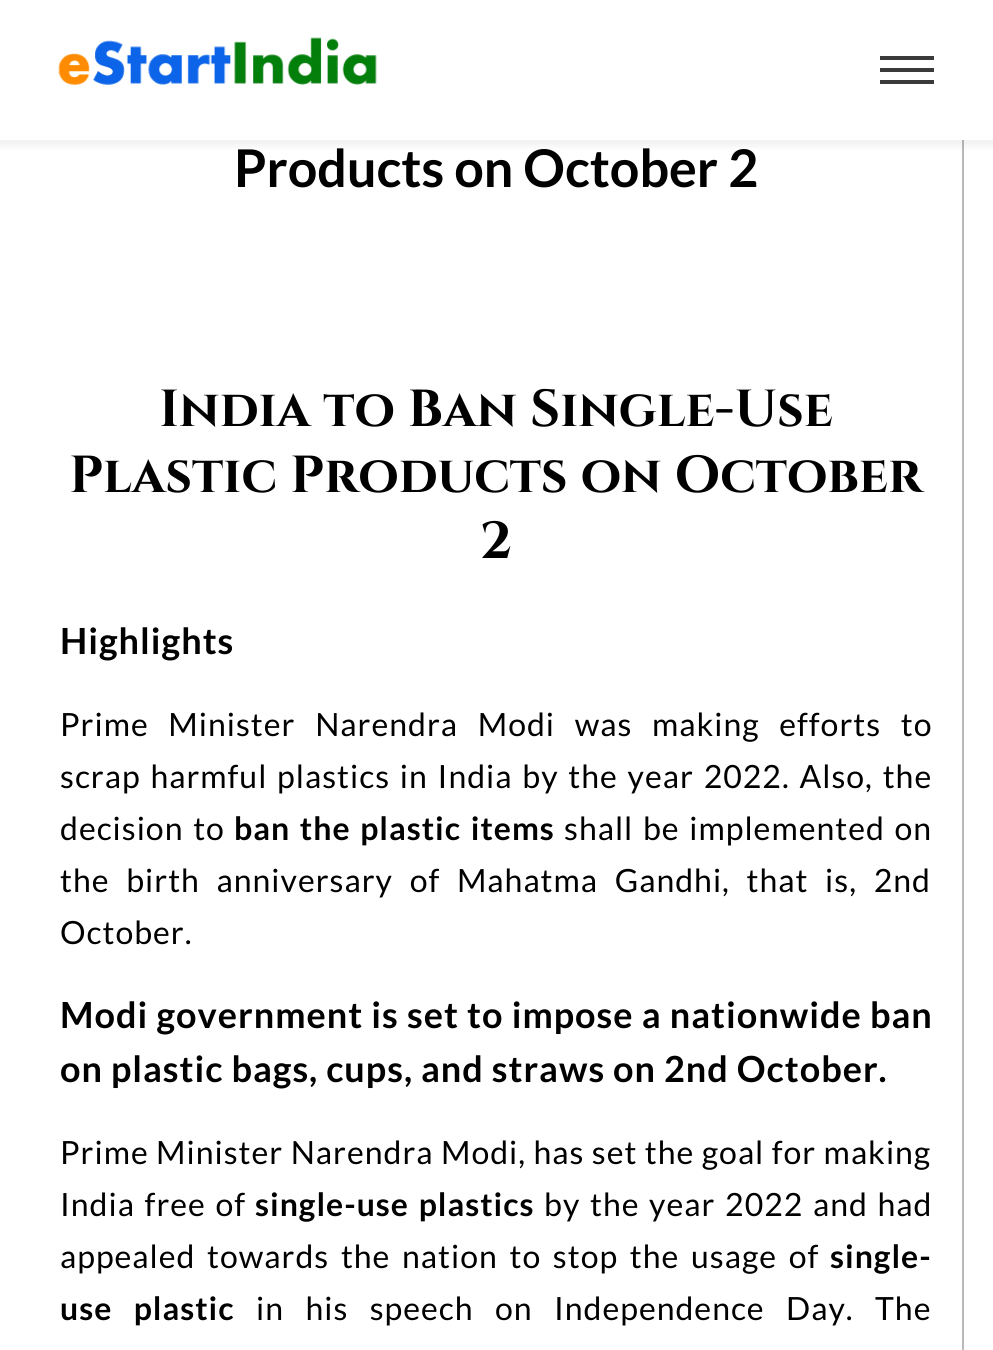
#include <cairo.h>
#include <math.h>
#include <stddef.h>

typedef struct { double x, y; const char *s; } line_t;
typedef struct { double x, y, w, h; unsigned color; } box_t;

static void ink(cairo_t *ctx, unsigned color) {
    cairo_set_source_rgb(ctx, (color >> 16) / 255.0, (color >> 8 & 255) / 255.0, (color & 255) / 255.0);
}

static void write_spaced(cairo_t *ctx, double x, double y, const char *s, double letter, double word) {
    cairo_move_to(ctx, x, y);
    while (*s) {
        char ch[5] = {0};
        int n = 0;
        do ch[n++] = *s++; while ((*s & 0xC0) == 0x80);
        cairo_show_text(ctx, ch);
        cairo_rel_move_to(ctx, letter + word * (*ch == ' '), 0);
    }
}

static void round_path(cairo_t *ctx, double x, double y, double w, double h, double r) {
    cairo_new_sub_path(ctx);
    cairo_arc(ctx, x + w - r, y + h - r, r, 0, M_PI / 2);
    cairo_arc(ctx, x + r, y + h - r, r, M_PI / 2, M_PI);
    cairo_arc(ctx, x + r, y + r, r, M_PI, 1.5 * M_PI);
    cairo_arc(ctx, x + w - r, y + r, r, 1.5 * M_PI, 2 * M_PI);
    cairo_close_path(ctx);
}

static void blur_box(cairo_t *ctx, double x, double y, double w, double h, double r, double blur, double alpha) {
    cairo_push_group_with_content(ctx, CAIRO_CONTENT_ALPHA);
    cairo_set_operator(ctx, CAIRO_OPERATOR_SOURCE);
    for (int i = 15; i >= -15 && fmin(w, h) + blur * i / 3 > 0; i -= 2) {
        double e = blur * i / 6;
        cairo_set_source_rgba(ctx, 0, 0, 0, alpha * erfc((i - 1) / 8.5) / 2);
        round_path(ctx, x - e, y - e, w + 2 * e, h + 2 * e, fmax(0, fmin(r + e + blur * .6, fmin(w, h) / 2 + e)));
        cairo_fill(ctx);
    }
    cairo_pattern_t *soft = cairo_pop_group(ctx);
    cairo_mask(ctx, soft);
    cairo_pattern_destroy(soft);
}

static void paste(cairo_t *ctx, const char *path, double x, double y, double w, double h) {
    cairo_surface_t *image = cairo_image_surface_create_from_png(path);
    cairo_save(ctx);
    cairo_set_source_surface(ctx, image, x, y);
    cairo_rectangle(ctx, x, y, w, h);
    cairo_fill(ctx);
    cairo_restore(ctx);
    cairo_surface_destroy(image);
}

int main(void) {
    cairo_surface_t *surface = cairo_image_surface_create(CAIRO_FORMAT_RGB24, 993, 1350);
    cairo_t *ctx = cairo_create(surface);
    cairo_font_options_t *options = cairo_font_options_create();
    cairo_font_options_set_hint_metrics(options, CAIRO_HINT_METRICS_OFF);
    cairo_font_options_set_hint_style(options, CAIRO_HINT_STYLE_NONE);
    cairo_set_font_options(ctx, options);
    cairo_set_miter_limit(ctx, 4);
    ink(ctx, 0xFFFFFF);
    cairo_paint(ctx);
    ink(ctx, 0xB9B9B9);
    cairo_rectangle(ctx, 962, 140, 2, 1210);
    cairo_fill(ctx);
    ink(ctx, 0x000000);
    blur_box(ctx, -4, -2, 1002, 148, 0, 4, 0.06);
    ink(ctx, 0xFFFFFF);
    cairo_rectangle(ctx, 0, 0, 993, 140);
    cairo_fill(ctx);
    paste(ctx, "media/1.png", 58, 37, 319, 48);
    {
        static const box_t items[] = {
            {880, 56, 54, 4, 0x3A3A3A},
            {880, 68, 54, 4, 0x3A3A3A},
            {880, 80, 54, 4, 0x3A3A3A},
        };
        for (size_t i = 0; i < sizeof items / sizeof *items; i++) {
            ink(ctx, items[i].color);
            cairo_rectangle(ctx, items[i].x, items[i].y, items[i].w, items[i].h);
            cairo_fill(ctx);
        }
    }
    cairo_select_font_face(ctx, "Lato", CAIRO_FONT_SLANT_NORMAL, CAIRO_FONT_WEIGHT_BOLD);
    cairo_set_font_size(ctx, 52);
    ink(ctx, 0x000000);
    cairo_move_to(ctx, 234, 187);
    cairo_show_text(ctx, "Products on October 2");
    cairo_select_font_face(ctx, "Cinzel", CAIRO_FONT_SLANT_NORMAL, CAIRO_FONT_WEIGHT_BOLD);
    {
        static const line_t items[] = {
            {159, 426, "India to Ban Single-Use"},
            {69, 492, "Plastic Products on October"},
            {480, 558, "2"},
        };
        for (size_t i = 0; i < sizeof items / sizeof *items; i++) {
            cairo_move_to(ctx, items[i].x, items[i].y);
            cairo_show_text(ctx, items[i].s);
        }
    }
    cairo_select_font_face(ctx, "Lato", CAIRO_FONT_SLANT_NORMAL, CAIRO_FONT_WEIGHT_BOLD);
    cairo_set_font_size(ctx, 36);
    write_spaced(ctx, 60, 654, "Highlights", 1, 0);
    cairo_select_font_face(ctx, "Lato", CAIRO_FONT_SLANT_NORMAL, CAIRO_FONT_WEIGHT_NORMAL);
    cairo_set_font_size(ctx, 32);
    write_spaced(ctx, 60, 736, "Prime Minister Narendra Modi was making efforts to", 1, 12.5);
    write_spaced(ctx, 60, 788, "scrap harmful plastics in India by the year 2022. Also, the", 1, 2.6);
    write_spaced(ctx, 60, 840, "decision to", 1, 2.5);
    cairo_select_font_face(ctx, "Lato", CAIRO_FONT_SLANT_NORMAL, CAIRO_FONT_WEIGHT_BOLD);
    write_spaced(ctx, 234, 840, "ban the plastic items", 1, 2.5);
    cairo_select_font_face(ctx, "Lato", CAIRO_FONT_SLANT_NORMAL, CAIRO_FONT_WEIGHT_NORMAL);
    write_spaced(ctx, 564, 840, "shall be implemented on", 1, 2.5);
    write_spaced(ctx, 60, 892, "the birth anniversary of Mahatma Gandhi, that is, 2nd", 1, 9.5);
    write_spaced(ctx, 60, 944, "October.", 1, 0);
    cairo_select_font_face(ctx, "Lato", CAIRO_FONT_SLANT_NORMAL, CAIRO_FONT_WEIGHT_BOLD);
    cairo_set_font_size(ctx, 36);
    write_spaced(ctx, 60, 1028, "Modi government is set to impose a nationwide ban", 1, 0.25);
    write_spaced(ctx, 60, 1082, "on plastic bags, cups, and straws on 2nd October.", 1, 0);
    cairo_select_font_face(ctx, "Lato", CAIRO_FONT_SLANT_NORMAL, CAIRO_FONT_WEIGHT_NORMAL);
    cairo_set_font_size(ctx, 32);
    write_spaced(ctx, 60, 1164, "Prime Minister Narendra Modi, has set the goal for making", 1, 0.25);
    write_spaced(ctx, 60, 1216, "India free of", 1, 2.5);
    cairo_select_font_face(ctx, "Lato", CAIRO_FONT_SLANT_NORMAL, CAIRO_FONT_WEIGHT_BOLD);
    write_spaced(ctx, 255, 1216, "single-use plastics", 1, 2.5);
    cairo_select_font_face(ctx, "Lato", CAIRO_FONT_SLANT_NORMAL, CAIRO_FONT_WEIGHT_NORMAL);
    write_spaced(ctx, 544, 1216, "by the year 2022 and had", 1, 2.5);
    write_spaced(ctx, 60, 1268, "appealed towards the nation to stop the usage of", 1, 4.5);
    cairo_select_font_face(ctx, "Lato", CAIRO_FONT_SLANT_NORMAL, CAIRO_FONT_WEIGHT_BOLD);
    write_spaced(ctx, 830, 1268, "single-", 1, 0);
    write_spaced(ctx, 60, 1320, "use plastic", 1, 14.25);
    cairo_select_font_face(ctx, "Lato", CAIRO_FONT_SLANT_NORMAL, CAIRO_FONT_WEIGHT_NORMAL);
    write_spaced(ctx, 256, 1320, "in his speech on Independence Day. The", 1, 14.25);
    cairo_surface_write_to_png(surface, "image.png");
    cairo_font_options_destroy(options);
    cairo_destroy(ctx);
    cairo_surface_destroy(surface);
    return 0;
}
